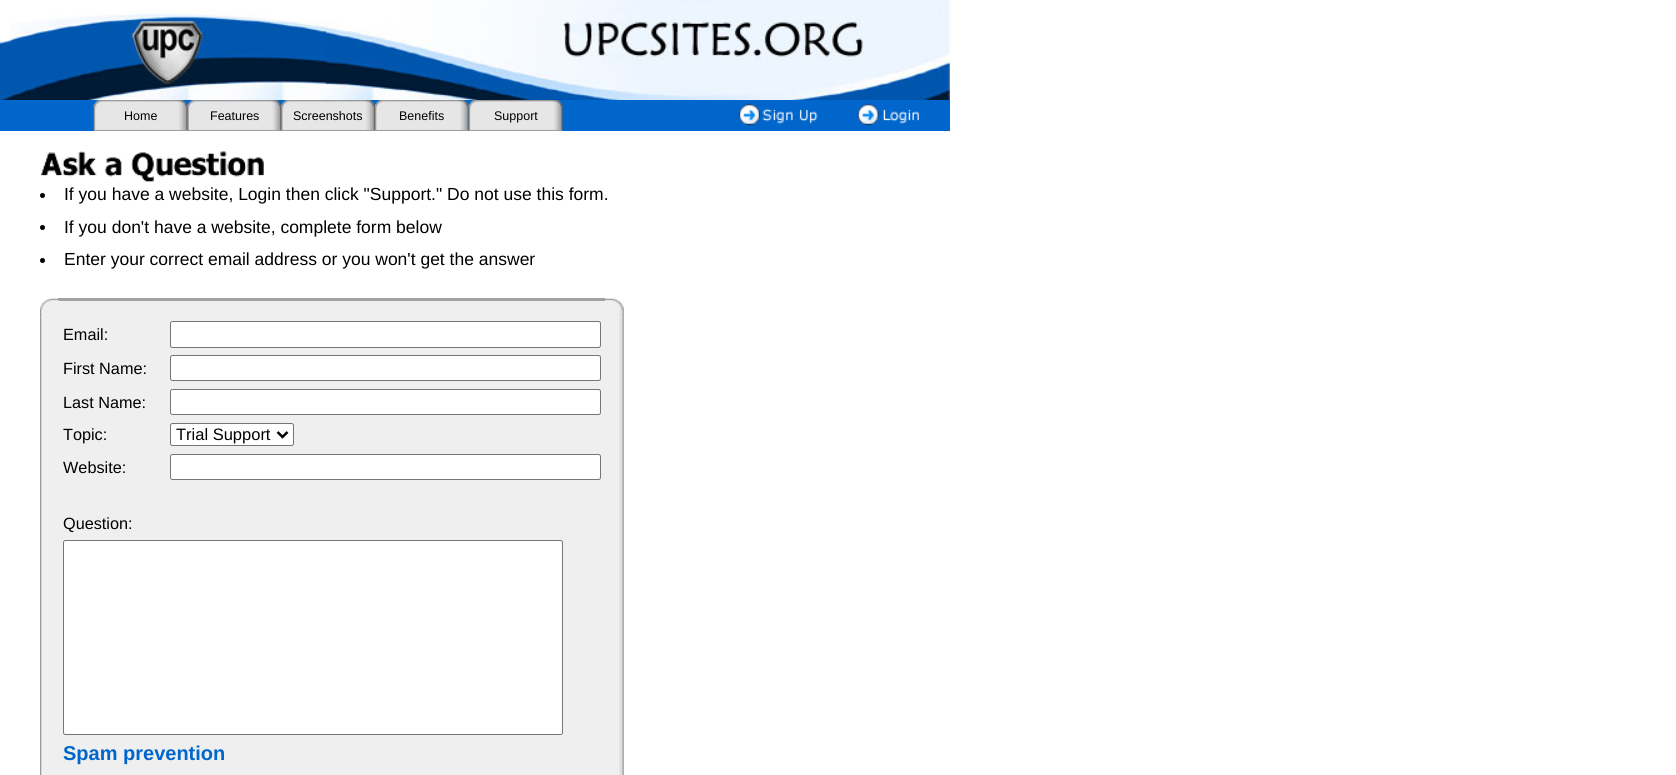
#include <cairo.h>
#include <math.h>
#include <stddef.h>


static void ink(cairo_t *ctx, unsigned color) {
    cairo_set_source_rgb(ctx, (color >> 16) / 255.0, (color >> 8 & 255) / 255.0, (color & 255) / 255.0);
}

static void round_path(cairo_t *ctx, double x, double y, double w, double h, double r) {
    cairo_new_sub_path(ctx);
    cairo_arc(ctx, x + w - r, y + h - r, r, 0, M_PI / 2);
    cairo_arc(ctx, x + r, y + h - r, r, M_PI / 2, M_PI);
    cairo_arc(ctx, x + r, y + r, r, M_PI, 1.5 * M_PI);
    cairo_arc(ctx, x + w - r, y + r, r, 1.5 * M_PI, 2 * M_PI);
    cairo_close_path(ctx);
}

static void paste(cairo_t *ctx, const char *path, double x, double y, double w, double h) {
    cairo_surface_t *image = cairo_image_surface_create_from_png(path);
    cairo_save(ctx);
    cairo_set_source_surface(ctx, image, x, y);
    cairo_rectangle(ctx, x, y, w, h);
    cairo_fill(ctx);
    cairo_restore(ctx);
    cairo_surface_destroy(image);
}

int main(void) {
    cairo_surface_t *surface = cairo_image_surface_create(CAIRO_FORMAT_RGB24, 1676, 775);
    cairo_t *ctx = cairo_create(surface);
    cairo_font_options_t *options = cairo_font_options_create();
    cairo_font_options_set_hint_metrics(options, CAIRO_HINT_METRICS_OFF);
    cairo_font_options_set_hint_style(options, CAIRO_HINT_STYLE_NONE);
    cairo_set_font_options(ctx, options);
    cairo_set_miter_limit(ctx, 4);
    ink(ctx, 0xFFFFFF);
    cairo_paint(ctx);
    paste(ctx, "media/1.png", 0, 0, 950, 100);
    ink(ctx, 0x0066CC);
    cairo_rectangle(ctx, 0, 100, 950, 31);
    cairo_fill(ctx);
    paste(ctx, "media/2.png", 93, 100, 95, 31);
    cairo_select_font_face(ctx, "Liberation Sans", CAIRO_FONT_SLANT_NORMAL, CAIRO_FONT_WEIGHT_NORMAL);
    cairo_set_font_size(ctx, 12.5);
    ink(ctx, 0x000000);
    cairo_move_to(ctx, 124, 120);
    cairo_show_text(ctx, "Home");
    paste(ctx, "media/3.png", 187, 100, 95, 31);
    cairo_move_to(ctx, 210, 120);
    cairo_show_text(ctx, "Features");
    paste(ctx, "media/4.png", 281, 100, 94, 31);
    cairo_move_to(ctx, 293, 120);
    cairo_show_text(ctx, "Screenshots");
    paste(ctx, "media/5.png", 375, 100, 94, 31);
    cairo_move_to(ctx, 399, 120);
    cairo_show_text(ctx, "Benefits");
    paste(ctx, "media/6.png", 468, 100, 95, 31);
    cairo_move_to(ctx, 494, 120);
    cairo_show_text(ctx, "Support");
    paste(ctx, "media/7.png", 738, 103, 80, 23);
    paste(ctx, "media/8.png", 857, 103, 62, 23);
    paste(ctx, "media/9.png", 41, 151, 223, 31);
    cairo_arc(ctx, 42.5, 195.5, 2.5, 0, 2 * M_PI);
    cairo_fill(ctx);
    cairo_set_font_size(ctx, 17.5);
    cairo_move_to(ctx, 64, 200);
    cairo_show_text(ctx, "If you have a website, Login then click \"Support.\" Do not use this form.");
    cairo_new_path(ctx);
    cairo_arc(ctx, 42.5, 227.5, 2.5, 0, 2 * M_PI);
    cairo_fill(ctx);
    cairo_move_to(ctx, 64, 233);
    cairo_show_text(ctx, "If you don't have a website, complete form below");
    cairo_new_path(ctx);
    cairo_arc(ctx, 42.5, 260.5, 2.5, 0, 2 * M_PI);
    cairo_fill(ctx);
    cairo_move_to(ctx, 64, 265);
    cairo_show_text(ctx, "Enter your correct email address or you won't get the answer");
    ink(ctx, 0xEFEFEF);
    cairo_rectangle(ctx, 40, 299, 584, 476);
    cairo_fill(ctx);
    ink(ctx, 0xA2A2A2);
    cairo_rectangle(ctx, 58, 298, 547, 3);
    cairo_fill(ctx);
    paste(ctx, "media/12.png", 40, 317, 2, 458);
    paste(ctx, "media/10.png", 40, 298, 19, 20);
    paste(ctx, "media/13.png", 619, 317, 5, 458);
    paste(ctx, "media/11.png", 605, 298, 19, 20);
    cairo_set_font_size(ctx, 16.25);
    ink(ctx, 0x000000);
    cairo_move_to(ctx, 63, 340);
    cairo_show_text(ctx, "Email:");
    ink(ctx, 0xFFFFFF);
    round_path(ctx, 170.5, 321.5, 430, 26, 2);
    cairo_fill_preserve(ctx);
    ink(ctx, 0x767676);
    cairo_set_line_width(ctx, 1);
    cairo_stroke(ctx);
    ink(ctx, 0x000000);
    cairo_move_to(ctx, 63, 374);
    cairo_show_text(ctx, "First Name:");
    ink(ctx, 0xFFFFFF);
    round_path(ctx, 170.5, 355.5, 430, 25, 2);
    cairo_fill_preserve(ctx);
    ink(ctx, 0x767676);
    cairo_stroke(ctx);
    ink(ctx, 0x000000);
    cairo_move_to(ctx, 63, 408);
    cairo_show_text(ctx, "Last Name:");
    ink(ctx, 0xFFFFFF);
    round_path(ctx, 170.5, 389.5, 430, 25, 2);
    cairo_fill_preserve(ctx);
    ink(ctx, 0x767676);
    cairo_stroke(ctx);
    ink(ctx, 0x000000);
    cairo_move_to(ctx, 63, 440);
    cairo_show_text(ctx, "Topic:");
    ink(ctx, 0xFFFFFF);
    round_path(ctx, 170.5, 423.5, 123, 22, 2);
    cairo_fill_preserve(ctx);
    ink(ctx, 0x767676);
    cairo_stroke(ctx);
    cairo_new_path(ctx);
    cairo_move_to(ctx, 277.5, 432);
    cairo_line_to(ctx, 282.5, 437);
    cairo_line_to(ctx, 287.5, 432);
    ink(ctx, 0x000000);
    cairo_set_line_width(ctx, 2.5);
    cairo_stroke(ctx);
    cairo_set_font_size(ctx, 16.5);
    cairo_move_to(ctx, 176, 440);
    cairo_show_text(ctx, "Trial Support");
    cairo_set_font_size(ctx, 16.25);
    cairo_move_to(ctx, 63, 473);
    cairo_show_text(ctx, "Website:");
    ink(ctx, 0xFFFFFF);
    round_path(ctx, 170.5, 454.5, 430, 25, 2);
    cairo_fill_preserve(ctx);
    ink(ctx, 0x767676);
    cairo_set_line_width(ctx, 1);
    cairo_stroke(ctx);
    ink(ctx, 0x000000);
    cairo_move_to(ctx, 63, 529);
    cairo_show_text(ctx, "Question:");
    ink(ctx, 0xFFFFFF);
    round_path(ctx, 63.5, 540.5, 499, 194, 2);
    cairo_fill_preserve(ctx);
    ink(ctx, 0x767676);
    cairo_stroke(ctx);
    cairo_select_font_face(ctx, "Liberation Sans", CAIRO_FONT_SLANT_NORMAL, CAIRO_FONT_WEIGHT_BOLD);
    cairo_set_font_size(ctx, 20);
    ink(ctx, 0x0066CC);
    cairo_move_to(ctx, 63, 760);
    cairo_show_text(ctx, "Spam prevention");
    cairo_surface_write_to_png(surface, "image.png");
    cairo_font_options_destroy(options);
    cairo_destroy(ctx);
    cairo_surface_destroy(surface);
    return 0;
}
